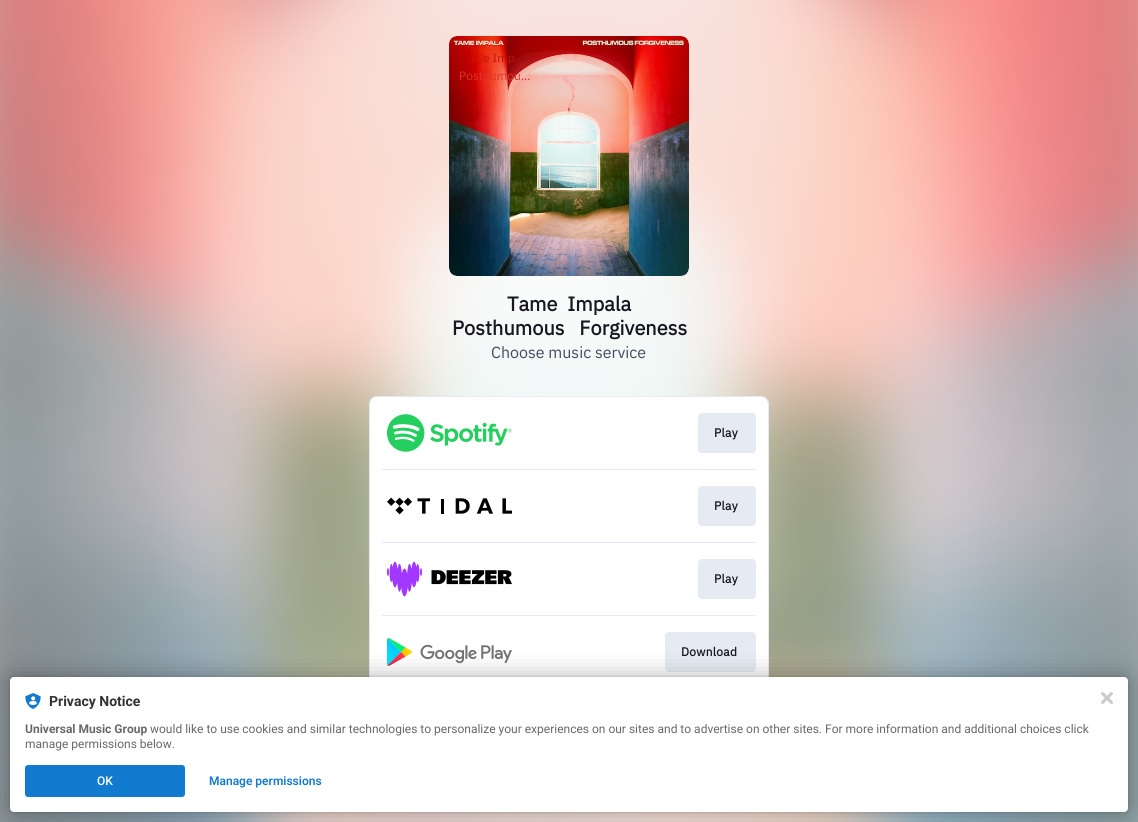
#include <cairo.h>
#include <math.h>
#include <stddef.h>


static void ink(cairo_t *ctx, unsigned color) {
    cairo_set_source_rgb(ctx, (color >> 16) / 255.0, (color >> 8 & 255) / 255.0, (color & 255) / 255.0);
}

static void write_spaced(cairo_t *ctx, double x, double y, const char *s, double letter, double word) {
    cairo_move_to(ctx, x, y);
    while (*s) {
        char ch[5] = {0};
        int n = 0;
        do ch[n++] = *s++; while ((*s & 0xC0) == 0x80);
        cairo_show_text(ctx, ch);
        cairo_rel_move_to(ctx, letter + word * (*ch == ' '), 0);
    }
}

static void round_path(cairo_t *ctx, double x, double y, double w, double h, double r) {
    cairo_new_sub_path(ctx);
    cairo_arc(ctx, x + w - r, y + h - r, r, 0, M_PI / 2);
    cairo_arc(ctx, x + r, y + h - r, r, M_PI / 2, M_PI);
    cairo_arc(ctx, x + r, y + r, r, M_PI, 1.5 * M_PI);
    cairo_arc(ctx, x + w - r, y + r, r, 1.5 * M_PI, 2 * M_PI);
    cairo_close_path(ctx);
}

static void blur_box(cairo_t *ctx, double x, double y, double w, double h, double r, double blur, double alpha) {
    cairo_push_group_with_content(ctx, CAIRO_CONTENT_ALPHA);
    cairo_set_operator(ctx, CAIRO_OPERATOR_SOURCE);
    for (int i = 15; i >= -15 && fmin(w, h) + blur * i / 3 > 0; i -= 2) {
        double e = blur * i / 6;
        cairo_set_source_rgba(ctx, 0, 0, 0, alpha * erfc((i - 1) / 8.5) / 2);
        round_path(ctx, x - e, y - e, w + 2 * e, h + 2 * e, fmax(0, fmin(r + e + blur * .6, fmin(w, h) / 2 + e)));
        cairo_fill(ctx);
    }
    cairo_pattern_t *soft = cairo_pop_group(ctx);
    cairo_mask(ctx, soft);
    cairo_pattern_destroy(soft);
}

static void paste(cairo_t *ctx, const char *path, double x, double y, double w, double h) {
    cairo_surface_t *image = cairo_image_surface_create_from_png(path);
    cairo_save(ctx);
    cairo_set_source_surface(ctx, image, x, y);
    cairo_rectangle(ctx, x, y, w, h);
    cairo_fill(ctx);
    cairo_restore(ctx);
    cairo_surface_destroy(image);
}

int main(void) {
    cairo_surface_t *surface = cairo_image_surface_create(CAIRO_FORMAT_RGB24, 1138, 822);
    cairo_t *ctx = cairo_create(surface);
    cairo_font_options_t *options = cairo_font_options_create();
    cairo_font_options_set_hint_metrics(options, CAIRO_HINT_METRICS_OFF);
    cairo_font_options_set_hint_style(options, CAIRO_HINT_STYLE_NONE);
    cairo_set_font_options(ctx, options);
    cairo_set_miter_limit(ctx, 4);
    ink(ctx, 0xFFFFFF);
    cairo_paint(ctx);
    paste(ctx, "media/1.png", 0, 0, 1138, 822);
    paste(ctx, "media/2.png", 449, 36, 240, 240);
    cairo_select_font_face(ctx, "IBM Plex Sans", CAIRO_FONT_SLANT_NORMAL, CAIRO_FONT_WEIGHT_NORMAL);
    cairo_set_font_size(ctx, 12);
    ink(ctx, 0xC1140C);
    cairo_move_to(ctx, 483, 62);
    cairo_show_text(ctx, "e Imp");
    ink(ctx, 0xD7362B);
    cairo_move_to(ctx, 459, 80);
    cairo_show_text(ctx, "Posthumou…");
    cairo_select_font_face(ctx, "IBM Plex Sans", CAIRO_FONT_SLANT_NORMAL, CAIRO_FONT_WEIGHT_BOLD);
    cairo_set_font_size(ctx, 20);
    ink(ctx, 0x181721);
    write_spaced(ctx, 507, 311, "Tame Impala", 0, 5);
    write_spaced(ctx, 452, 335, "Posthumous Forgiveness", 0, 10);
    cairo_select_font_face(ctx, "IBM Plex Sans", CAIRO_FONT_SLANT_NORMAL, CAIRO_FONT_WEIGHT_NORMAL);
    cairo_set_font_size(ctx, 16);
    ink(ctx, 0x454B5F);
    cairo_move_to(ctx, 491, 358);
    cairo_show_text(ctx, "Choose music service");
    round_path(ctx, 369.5, 396.5, 399, 292, 7.5);
    ink(ctx, 0xE6EAF2);
    cairo_set_line_width(ctx, 1);
    cairo_stroke(ctx);
    ink(ctx, 0xFFFFFF);
    round_path(ctx, 370, 397, 398, 291, 7);
    cairo_fill(ctx);
    paste(ctx, "media/3.png", 387, 414, 125, 38);
    ink(ctx, 0xE6EAF2);
    round_path(ctx, 698, 413, 58, 40, 4);
    cairo_fill(ctx);
    cairo_select_font_face(ctx, "IBM Plex Sans", CAIRO_FONT_SLANT_NORMAL, CAIRO_FONT_WEIGHT_BOLD);
    cairo_set_font_size(ctx, 12);
    ink(ctx, 0x181721);
    write_spaced(ctx, 714, 437, "Play", 0.25, 0);
    ink(ctx, 0xE6EAF2);
    cairo_rectangle(ctx, 382, 469, 374, 1);
    cairo_fill(ctx);
    paste(ctx, "media/4.png", 387, 497, 125, 18);
    round_path(ctx, 698, 486, 58, 40, 4);
    cairo_fill(ctx);
    ink(ctx, 0x181721);
    write_spaced(ctx, 714, 510, "Play", 0.25, 0);
    ink(ctx, 0xE6EAF2);
    cairo_rectangle(ctx, 382, 542, 374, 1);
    cairo_fill(ctx);
    paste(ctx, "media/5.png", 387, 561, 125, 36);
    round_path(ctx, 698, 559, 58, 40, 4);
    cairo_fill(ctx);
    ink(ctx, 0x181721);
    write_spaced(ctx, 714, 583, "Play", 0.25, 0);
    ink(ctx, 0xE6EAF2);
    cairo_rectangle(ctx, 382, 615, 374, 1);
    cairo_fill(ctx);
    paste(ctx, "media/6.png", 387, 638, 125, 28);
    round_path(ctx, 665, 632, 91, 40, 4);
    cairo_fill(ctx);
    ink(ctx, 0x181721);
    write_spaced(ctx, 681, 656, "Download", 0.25, 0);
    ink(ctx, 0x000000);
    blur_box(ctx, 10, 677, 1118, 135, 4, 2, 0.12);
    blur_box(ctx, 10, 677, 1118, 135, 4, 12, 0.3);
    ink(ctx, 0xFFFFFF);
    round_path(ctx, 10, 677, 1118, 135, 4);
    cairo_fill(ctx);
    paste(ctx, "media/7.png", 25, 693, 16, 16);
    cairo_select_font_face(ctx, "Roboto", CAIRO_FONT_SLANT_NORMAL, CAIRO_FONT_WEIGHT_BOLD);
    cairo_set_font_size(ctx, 14);
    ink(ctx, 0x323232);
    cairo_move_to(ctx, 49, 706);
    cairo_show_text(ctx, "Privacy Notice");
    cairo_set_font_size(ctx, 12);
    ink(ctx, 0x686868);
    cairo_move_to(ctx, 25, 733);
    cairo_show_text(ctx, "Universal Music Group");
    cairo_select_font_face(ctx, "Roboto", CAIRO_FONT_SLANT_NORMAL, CAIRO_FONT_WEIGHT_NORMAL);
    cairo_move_to(ctx, 150, 733);
    cairo_show_text(ctx, "would like to use cookies and similar technologies to personalize your experiences on our sites and to advertise on other sites. For more information and additional choices click");
    cairo_move_to(ctx, 25, 748);
    cairo_show_text(ctx, "manage permissions below.");
    ink(ctx, 0x137BCF);
    round_path(ctx, 25, 765, 160, 32, 3);
    cairo_fill(ctx);
    cairo_select_font_face(ctx, "Roboto Medium", CAIRO_FONT_SLANT_NORMAL, CAIRO_FONT_WEIGHT_NORMAL);
    ink(ctx, 0xFFFFFF);
    cairo_move_to(ctx, 97, 785);
    cairo_show_text(ctx, "OK");
    cairo_select_font_face(ctx, "Roboto SemiBold", CAIRO_FONT_SLANT_NORMAL, CAIRO_FONT_WEIGHT_NORMAL);
    ink(ctx, 0x137BCF);
    cairo_move_to(ctx, 209, 785);
    cairo_show_text(ctx, "Manage permissions");
    paste(ctx, "media/8.png", 1101, 692, 12, 12);
    cairo_surface_write_to_png(surface, "image.png");
    cairo_font_options_destroy(options);
    cairo_destroy(ctx);
    cairo_surface_destroy(surface);
    return 0;
}
